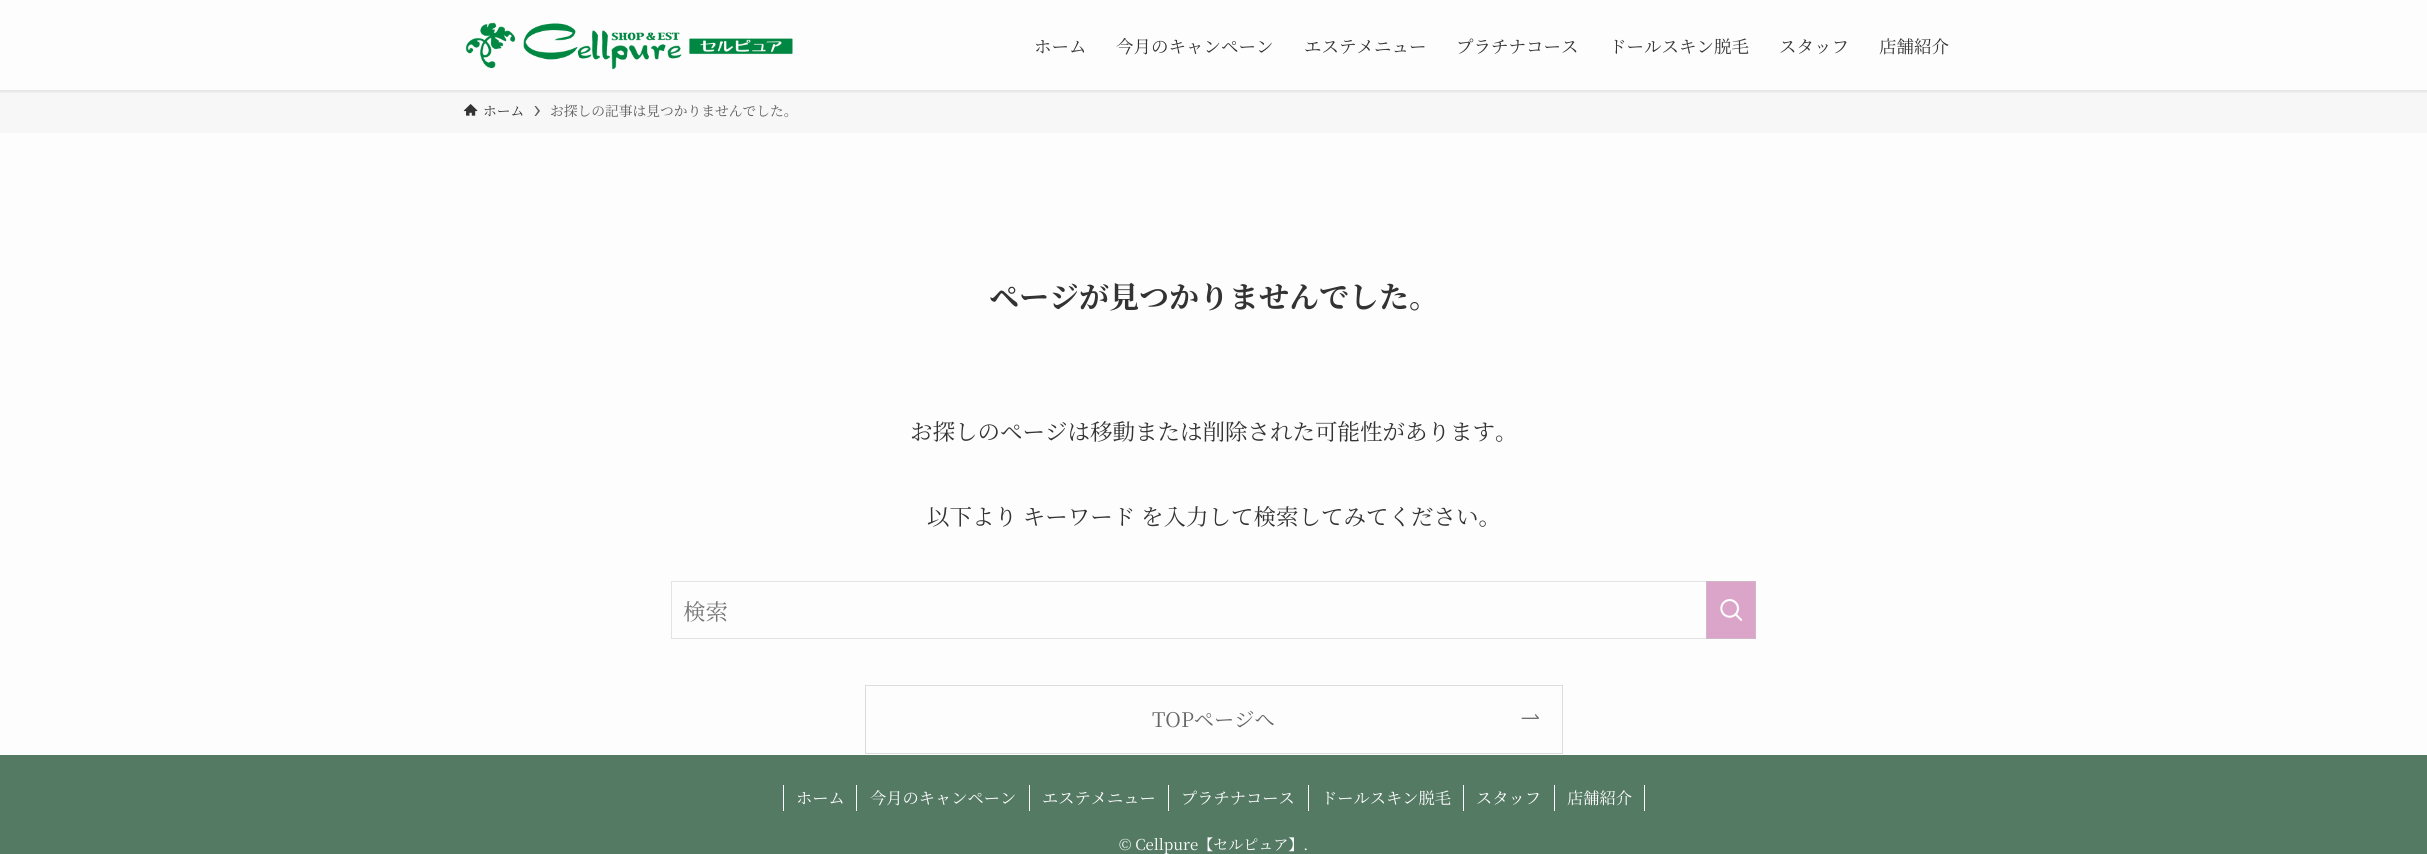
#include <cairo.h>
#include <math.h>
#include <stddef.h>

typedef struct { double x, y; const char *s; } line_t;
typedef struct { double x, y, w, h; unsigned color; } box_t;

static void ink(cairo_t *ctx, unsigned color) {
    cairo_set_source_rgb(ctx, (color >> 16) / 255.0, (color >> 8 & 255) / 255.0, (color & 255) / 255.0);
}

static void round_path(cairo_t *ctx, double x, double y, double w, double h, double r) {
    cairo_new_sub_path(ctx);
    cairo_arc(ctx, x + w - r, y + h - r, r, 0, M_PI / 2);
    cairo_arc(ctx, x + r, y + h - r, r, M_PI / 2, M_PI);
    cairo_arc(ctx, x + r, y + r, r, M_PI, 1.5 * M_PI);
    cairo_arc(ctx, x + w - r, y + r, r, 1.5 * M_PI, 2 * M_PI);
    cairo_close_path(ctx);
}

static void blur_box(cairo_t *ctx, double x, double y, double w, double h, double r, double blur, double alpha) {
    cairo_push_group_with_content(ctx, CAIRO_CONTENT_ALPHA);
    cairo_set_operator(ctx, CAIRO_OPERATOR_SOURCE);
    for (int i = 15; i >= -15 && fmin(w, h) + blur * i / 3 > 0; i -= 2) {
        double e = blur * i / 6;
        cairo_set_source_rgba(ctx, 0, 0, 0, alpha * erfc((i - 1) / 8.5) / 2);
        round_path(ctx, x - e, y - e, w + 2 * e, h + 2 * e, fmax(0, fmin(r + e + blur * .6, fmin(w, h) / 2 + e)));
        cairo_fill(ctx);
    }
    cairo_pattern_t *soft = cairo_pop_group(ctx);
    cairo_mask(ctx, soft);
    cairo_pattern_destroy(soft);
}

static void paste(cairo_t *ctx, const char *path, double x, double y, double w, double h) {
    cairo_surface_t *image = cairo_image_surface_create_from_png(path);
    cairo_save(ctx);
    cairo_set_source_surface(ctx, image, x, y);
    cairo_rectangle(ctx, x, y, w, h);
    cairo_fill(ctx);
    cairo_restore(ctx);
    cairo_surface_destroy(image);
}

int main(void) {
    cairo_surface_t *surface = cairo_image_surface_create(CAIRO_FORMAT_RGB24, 2427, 854);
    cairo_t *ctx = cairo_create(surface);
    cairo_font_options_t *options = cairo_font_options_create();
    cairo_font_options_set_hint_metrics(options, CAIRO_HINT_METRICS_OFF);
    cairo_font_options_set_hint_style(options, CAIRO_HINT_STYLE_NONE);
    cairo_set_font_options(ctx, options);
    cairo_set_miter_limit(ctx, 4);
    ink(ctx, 0xFDFDFD);
    cairo_paint(ctx);
    ink(ctx, 0xF7F7F7);
    cairo_rectangle(ctx, 0, 90, 2427, 43);
    cairo_fill(ctx);
    cairo_save(ctx);
    cairo_rectangle(ctx, 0, 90, 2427, 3);
    cairo_clip(ctx);
    ink(ctx, 0x000000);
    blur_box(ctx, 0, 1, 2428, 90, 0, 2.5, 0.12);
    cairo_restore(ctx);
    paste(ctx, "media/1.png", 465, 22, 328, 48);
    cairo_select_font_face(ctx, "Noto Serif JP", CAIRO_FONT_SLANT_NORMAL, CAIRO_FONT_WEIGHT_NORMAL);
    cairo_set_font_size(ctx, 17.5);
    ink(ctx, 0x333333);
    {
        static const line_t items[] = {
            {1034, 53, "ホーム"},
            {1116, 53, "今月のキャンペーン"},
            {1304, 53, "エステメニュー"},
            {1456, 53, "プラチナコース"},
            {1609, 53, "ドールスキン脱毛"},
            {1779, 53, "スタッフ"},
            {1879, 53, "店舗紹介"},
        };
        for (size_t i = 0; i < sizeof items / sizeof *items; i++) {
            cairo_move_to(ctx, items[i].x, items[i].y);
            cairo_show_text(ctx, items[i].s);
        }
    }
    paste(ctx, "media/2.png", 463, 104, 15, 12);
    cairo_set_font_size(ctx, 13.75);
    cairo_move_to(ctx, 483, 116);
    cairo_show_text(ctx, "ホーム");
    ink(ctx, 0x5A5A5A);
    cairo_new_path(ctx);
    cairo_move_to(ctx, 536, 106);
    cairo_line_to(ctx, 534.5, 106);
    cairo_line_to(ctx, 538, 111);
    cairo_line_to(ctx, 534.5, 116);
    cairo_line_to(ctx, 536, 116);
    cairo_line_to(ctx, 540, 111);
    cairo_close_path(ctx);
    cairo_fill(ctx);
    cairo_move_to(ctx, 550, 116);
    cairo_show_text(ctx, "お探しの記事は見つかりませんでした。");
    cairo_select_font_face(ctx, "Noto Serif JP", CAIRO_FONT_SLANT_NORMAL, CAIRO_FONT_WEIGHT_BOLD);
    cairo_set_font_size(ctx, 30);
    ink(ctx, 0x333333);
    cairo_move_to(ctx, 989, 308);
    cairo_show_text(ctx, "ページが見つかりませんでした。");
    cairo_select_font_face(ctx, "Noto Serif JP", CAIRO_FONT_SLANT_NORMAL, CAIRO_FONT_WEIGHT_NORMAL);
    cairo_set_font_size(ctx, 22.5);
    cairo_move_to(ctx, 910, 440);
    cairo_show_text(ctx, "お探しのページは移動または削除された可能性があります。");
    cairo_move_to(ctx, 927, 525);
    cairo_show_text(ctx, "以下より キーワード を入力して検索してみてください。");
    cairo_rectangle(ctx, 671.5, 581.5, 1084, 57);
    ink(ctx, 0xE3E3E3);
    cairo_set_line_width(ctx, 1);
    cairo_stroke(ctx);
    ink(ctx, 0x757575);
    cairo_move_to(ctx, 683, 620);
    cairo_show_text(ctx, "検索");
    ink(ctx, 0xDBA4C9);
    cairo_rectangle(ctx, 1706.5, 581.5, 49, 57);
    cairo_fill_preserve(ctx);
    ink(ctx, 0xD1B6C8);
    cairo_stroke(ctx);
    paste(ctx, "media/3.png", 1720, 599, 23, 22);
    cairo_rectangle(ctx, 865.5, 685.5, 697, 68);
    ink(ctx, 0xDCDCDC);
    cairo_stroke(ctx);
    cairo_set_font_size(ctx, 20.25);
    ink(ctx, 0x666666);
    cairo_move_to(ctx, 1152, 727);
    cairo_show_text(ctx, "TOPページへ");
    paste(ctx, "media/4.png", 1521, 714, 18, 5);
    {
        static const box_t items[] = {
            {0, 755, 2427, 99, 0x557A64},
            {856, 785, 1, 26, 0xFFFFFF},
            {783, 785, 1, 26, 0xFFFFFF},
        };
        for (size_t i = 0; i < sizeof items / sizeof *items; i++) {
            ink(ctx, items[i].color);
            cairo_rectangle(ctx, items[i].x, items[i].y, items[i].w, items[i].h);
            cairo_fill(ctx);
        }
    }
    cairo_set_font_size(ctx, 16.25);
    cairo_move_to(ctx, 796, 804);
    cairo_show_text(ctx, "ホーム");
    cairo_rectangle(ctx, 1029, 785, 1, 26);
    cairo_fill(ctx);
    cairo_move_to(ctx, 870, 804);
    cairo_show_text(ctx, "今月のキャンペーン");
    cairo_rectangle(ctx, 1168, 785, 1, 26);
    cairo_fill(ctx);
    cairo_move_to(ctx, 1042, 804);
    cairo_show_text(ctx, "エステメニュー");
    cairo_rectangle(ctx, 1308, 785, 1, 26);
    cairo_fill(ctx);
    cairo_move_to(ctx, 1181, 804);
    cairo_show_text(ctx, "プラチナコース");
    cairo_rectangle(ctx, 1463, 785, 1, 26);
    cairo_fill(ctx);
    cairo_move_to(ctx, 1321, 804);
    cairo_show_text(ctx, "ドールスキン脱毛");
    cairo_rectangle(ctx, 1554, 785, 1, 26);
    cairo_fill(ctx);
    cairo_move_to(ctx, 1476, 804);
    cairo_show_text(ctx, "スタッフ");
    cairo_rectangle(ctx, 1644, 785, 1, 26);
    cairo_fill(ctx);
    cairo_move_to(ctx, 1567, 804);
    cairo_show_text(ctx, "店舗紹介");
    cairo_set_font_size(ctx, 15);
    cairo_move_to(ctx, 1119, 850);
    cairo_show_text(ctx, "© Cellpure【セルピュア】.");
    cairo_surface_write_to_png(surface, "image.png");
    cairo_font_options_destroy(options);
    cairo_destroy(ctx);
    cairo_surface_destroy(surface);
    return 0;
}
